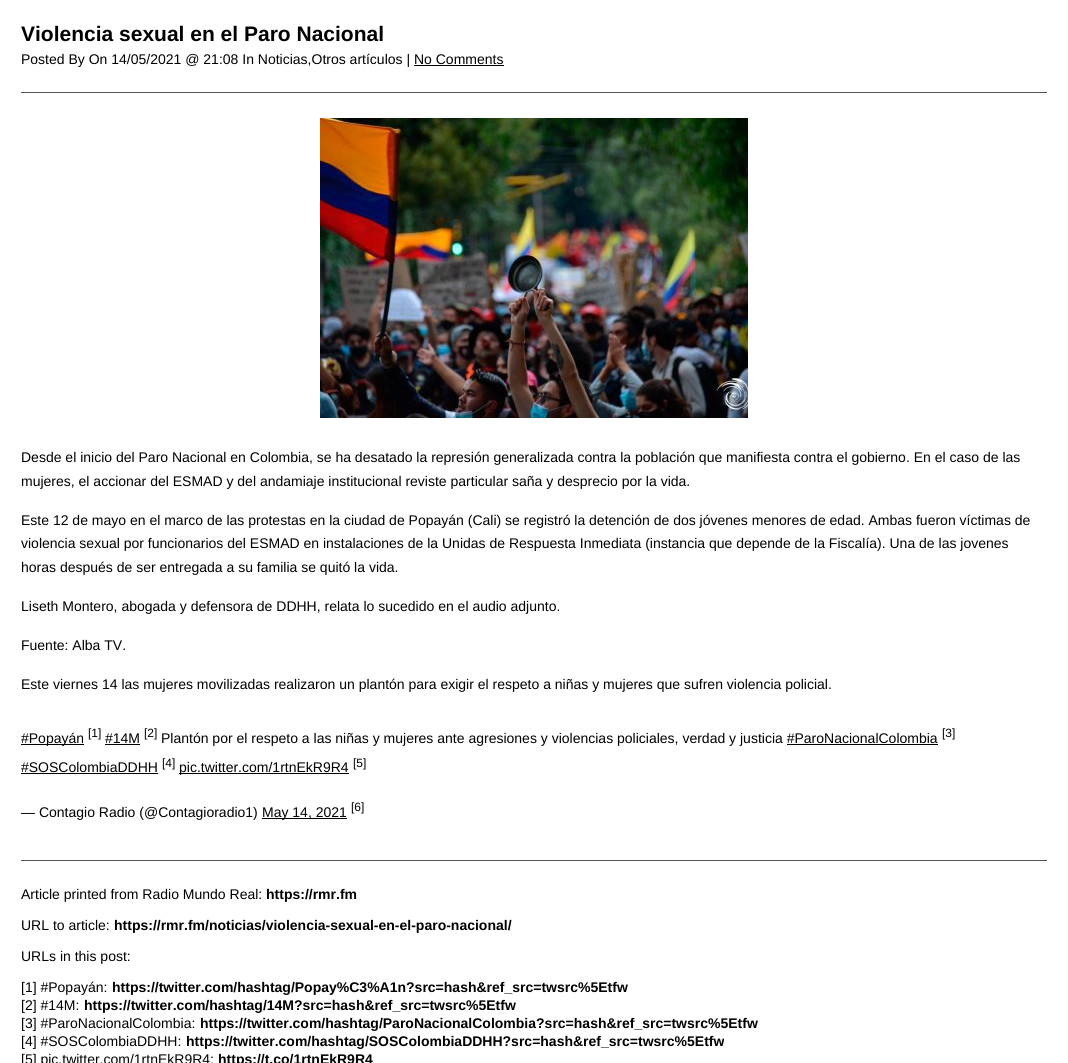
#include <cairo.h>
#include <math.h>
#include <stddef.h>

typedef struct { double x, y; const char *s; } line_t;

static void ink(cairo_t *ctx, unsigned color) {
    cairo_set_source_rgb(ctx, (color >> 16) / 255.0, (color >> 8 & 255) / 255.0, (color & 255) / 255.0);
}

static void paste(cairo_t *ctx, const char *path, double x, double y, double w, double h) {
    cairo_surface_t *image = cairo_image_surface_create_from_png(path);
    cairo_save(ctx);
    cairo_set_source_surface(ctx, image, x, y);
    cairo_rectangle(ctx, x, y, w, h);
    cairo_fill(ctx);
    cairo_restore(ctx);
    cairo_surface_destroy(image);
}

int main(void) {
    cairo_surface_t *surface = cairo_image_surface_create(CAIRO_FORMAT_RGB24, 1068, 1063);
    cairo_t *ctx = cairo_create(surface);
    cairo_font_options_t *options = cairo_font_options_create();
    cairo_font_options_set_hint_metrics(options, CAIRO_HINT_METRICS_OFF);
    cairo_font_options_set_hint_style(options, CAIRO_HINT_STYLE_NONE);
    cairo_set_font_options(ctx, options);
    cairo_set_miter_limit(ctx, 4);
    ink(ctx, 0xFFFFFF);
    cairo_paint(ctx);
    ink(ctx, 0x555555);
    cairo_rectangle(ctx, 21, 92, 1026, 1);
    cairo_fill(ctx);
    cairo_select_font_face(ctx, "Liberation Sans", CAIRO_FONT_SLANT_NORMAL, CAIRO_FONT_WEIGHT_BOLD);
    cairo_set_font_size(ctx, 21);
    ink(ctx, 0x000000);
    cairo_move_to(ctx, 21, 41);
    cairo_show_text(ctx, "Violencia sexual en el Paro Nacional");
    cairo_select_font_face(ctx, "Liberation Sans", CAIRO_FONT_SLANT_NORMAL, CAIRO_FONT_WEIGHT_NORMAL);
    cairo_set_font_size(ctx, 14);
    cairo_move_to(ctx, 21, 64);
    cairo_show_text(ctx, "Posted By On 14/05/2021 @ 21:08 In Noticias,Otros artículos | No Comments");
    cairo_rectangle(ctx, 414, 65, 90, 1);
    cairo_fill(ctx);
    paste(ctx, "media/1.png", 320, 118, 428, 300);
    {
        static const line_t items[] = {
            {21, 462, "Desde el inicio del Paro Nacional en Colombia, se ha desatado la represión generalizada contra la población que manifiesta contra el gobierno. En el caso de las"},
            {21, 486, "mujeres, el accionar del ESMAD y del andamiaje institucional reviste particular saña y desprecio por la vida."},
            {21, 525, "Este 12 de mayo en el marco de las protestas en la ciudad de Popayán (Cali) se registró la detención de dos jóvenes menores de edad. Ambas fueron víctimas de"},
            {21, 548, "violencia sexual por funcionarios del ESMAD en instalaciones de la Unidas de Respuesta Inmediata (instancia que depende de la Fiscalía). Una de las jovenes"},
            {21, 572, "horas después de ser entregada a su familia se quitó la vida."},
            {21, 611, "Liseth Montero, abogada y defensora de DDHH, relata lo sucedido en el audio adjunto."},
            {21, 650, "Fuente: Alba TV."},
            {21, 689, "Este viernes 14 las mujeres movilizadas realizaron un plantón para exigir el respeto a niñas y mujeres que sufren violencia policial."},
        };
        for (size_t i = 0; i < sizeof items / sizeof *items; i++) {
            cairo_move_to(ctx, items[i].x, items[i].y);
            cairo_show_text(ctx, items[i].s);
        }
    }
    cairo_rectangle(ctx, 21, 744, 63, 1);
    cairo_fill(ctx);
    cairo_move_to(ctx, 21, 743);
    cairo_show_text(ctx, "#Popayán");
    cairo_set_font_size(ctx, 12);
    cairo_move_to(ctx, 88, 737);
    cairo_show_text(ctx, "[1]");
    cairo_set_font_size(ctx, 14);
    cairo_move_to(ctx, 105, 743);
    cairo_show_text(ctx, "#14M");
    cairo_rectangle(ctx, 105, 744, 35, 1);
    cairo_fill(ctx);
    cairo_set_font_size(ctx, 12);
    cairo_move_to(ctx, 144, 737);
    cairo_show_text(ctx, "[2]");
    cairo_set_font_size(ctx, 14);
    cairo_move_to(ctx, 161, 743);
    cairo_show_text(ctx, "Plantón por el respeto a las niñas y mujeres ante agresiones y violencias policiales, verdad y justicia #ParoNacionalColombia");
    cairo_set_font_size(ctx, 12);
    cairo_move_to(ctx, 942, 737);
    cairo_show_text(ctx, "[3]");
    cairo_rectangle(ctx, 787, 744, 151, 1);
    cairo_fill(ctx);
    cairo_set_font_size(ctx, 14);
    cairo_move_to(ctx, 21, 772);
    cairo_show_text(ctx, "#SOSColombiaDDHH");
    cairo_rectangle(ctx, 21, 773, 137, 1);
    cairo_fill(ctx);
    cairo_set_font_size(ctx, 12);
    cairo_move_to(ctx, 162, 767);
    cairo_show_text(ctx, "[4]");
    cairo_rectangle(ctx, 179, 773, 170, 1);
    cairo_fill(ctx);
    cairo_set_font_size(ctx, 14);
    cairo_move_to(ctx, 179, 772);
    cairo_show_text(ctx, "pic.twitter.com/1rtnEkR9R4");
    cairo_set_font_size(ctx, 12);
    cairo_move_to(ctx, 353, 767);
    cairo_show_text(ctx, "[5]");
    cairo_set_font_size(ctx, 14);
    cairo_move_to(ctx, 21, 817);
    cairo_show_text(ctx, "— Contagio Radio (@Contagioradio1)");
    cairo_rectangle(ctx, 262, 818, 85, 1);
    cairo_fill(ctx);
    cairo_move_to(ctx, 262, 817);
    cairo_show_text(ctx, "May 14, 2021");
    cairo_set_font_size(ctx, 12);
    cairo_move_to(ctx, 351, 811);
    cairo_show_text(ctx, "[6]");
    ink(ctx, 0x555555);
    cairo_rectangle(ctx, 21, 860, 1026, 1);
    cairo_fill(ctx);
    cairo_set_font_size(ctx, 14);
    ink(ctx, 0x000000);
    cairo_move_to(ctx, 21, 899);
    cairo_show_text(ctx, "Article printed from Radio Mundo Real:");
    cairo_select_font_face(ctx, "Liberation Sans", CAIRO_FONT_SLANT_NORMAL, CAIRO_FONT_WEIGHT_BOLD);
    cairo_move_to(ctx, 266, 899);
    cairo_show_text(ctx, "https://rmr.fm");
    cairo_select_font_face(ctx, "Liberation Sans", CAIRO_FONT_SLANT_NORMAL, CAIRO_FONT_WEIGHT_NORMAL);
    cairo_move_to(ctx, 21, 930);
    cairo_show_text(ctx, "URL to article:");
    cairo_select_font_face(ctx, "Liberation Sans", CAIRO_FONT_SLANT_NORMAL, CAIRO_FONT_WEIGHT_BOLD);
    cairo_move_to(ctx, 114, 930);
    cairo_show_text(ctx, "https://rmr.fm/noticias/violencia-sexual-en-el-paro-nacional/");
    cairo_select_font_face(ctx, "Liberation Sans", CAIRO_FONT_SLANT_NORMAL, CAIRO_FONT_WEIGHT_NORMAL);
    cairo_move_to(ctx, 21, 961);
    cairo_show_text(ctx, "URLs in this post:");
    cairo_move_to(ctx, 21, 992);
    cairo_show_text(ctx, "[1] #Popayán:");
    cairo_select_font_face(ctx, "Liberation Sans", CAIRO_FONT_SLANT_NORMAL, CAIRO_FONT_WEIGHT_BOLD);
    cairo_move_to(ctx, 112, 992);
    cairo_show_text(ctx, "https://twitter.com/hashtag/Popay%C3%A1n?src=hash&ref_src=twsrc%5Etfw");
    cairo_select_font_face(ctx, "Liberation Sans", CAIRO_FONT_SLANT_NORMAL, CAIRO_FONT_WEIGHT_NORMAL);
    cairo_move_to(ctx, 21, 1010);
    cairo_show_text(ctx, "[2] #14M:");
    cairo_select_font_face(ctx, "Liberation Sans", CAIRO_FONT_SLANT_NORMAL, CAIRO_FONT_WEIGHT_BOLD);
    cairo_move_to(ctx, 84, 1010);
    cairo_show_text(ctx, "https://twitter.com/hashtag/14M?src=hash&ref_src=twsrc%5Etfw");
    cairo_select_font_face(ctx, "Liberation Sans", CAIRO_FONT_SLANT_NORMAL, CAIRO_FONT_WEIGHT_NORMAL);
    cairo_move_to(ctx, 21, 1028);
    cairo_show_text(ctx, "[3] #ParoNacionalColombia:");
    cairo_select_font_face(ctx, "Liberation Sans", CAIRO_FONT_SLANT_NORMAL, CAIRO_FONT_WEIGHT_BOLD);
    cairo_move_to(ctx, 200, 1028);
    cairo_show_text(ctx, "https://twitter.com/hashtag/ParoNacionalColombia?src=hash&ref_src=twsrc%5Etfw");
    cairo_select_font_face(ctx, "Liberation Sans", CAIRO_FONT_SLANT_NORMAL, CAIRO_FONT_WEIGHT_NORMAL);
    cairo_move_to(ctx, 21, 1046);
    cairo_show_text(ctx, "[4] #SOSColombiaDDHH:");
    cairo_select_font_face(ctx, "Liberation Sans", CAIRO_FONT_SLANT_NORMAL, CAIRO_FONT_WEIGHT_BOLD);
    cairo_move_to(ctx, 186, 1046);
    cairo_show_text(ctx, "https://twitter.com/hashtag/SOSColombiaDDHH?src=hash&ref_src=twsrc%5Etfw");
    cairo_select_font_face(ctx, "Liberation Sans", CAIRO_FONT_SLANT_NORMAL, CAIRO_FONT_WEIGHT_NORMAL);
    cairo_move_to(ctx, 21, 1064);
    cairo_show_text(ctx, "[5] pic.twitter.com/1rtnEkR9R4:");
    cairo_select_font_face(ctx, "Liberation Sans", CAIRO_FONT_SLANT_NORMAL, CAIRO_FONT_WEIGHT_BOLD);
    cairo_move_to(ctx, 218, 1064);
    cairo_show_text(ctx, "https://t.co/1rtnEkR9R4");
    cairo_surface_write_to_png(surface, "image.png");
    cairo_font_options_destroy(options);
    cairo_destroy(ctx);
    cairo_surface_destroy(surface);
    return 0;
}
